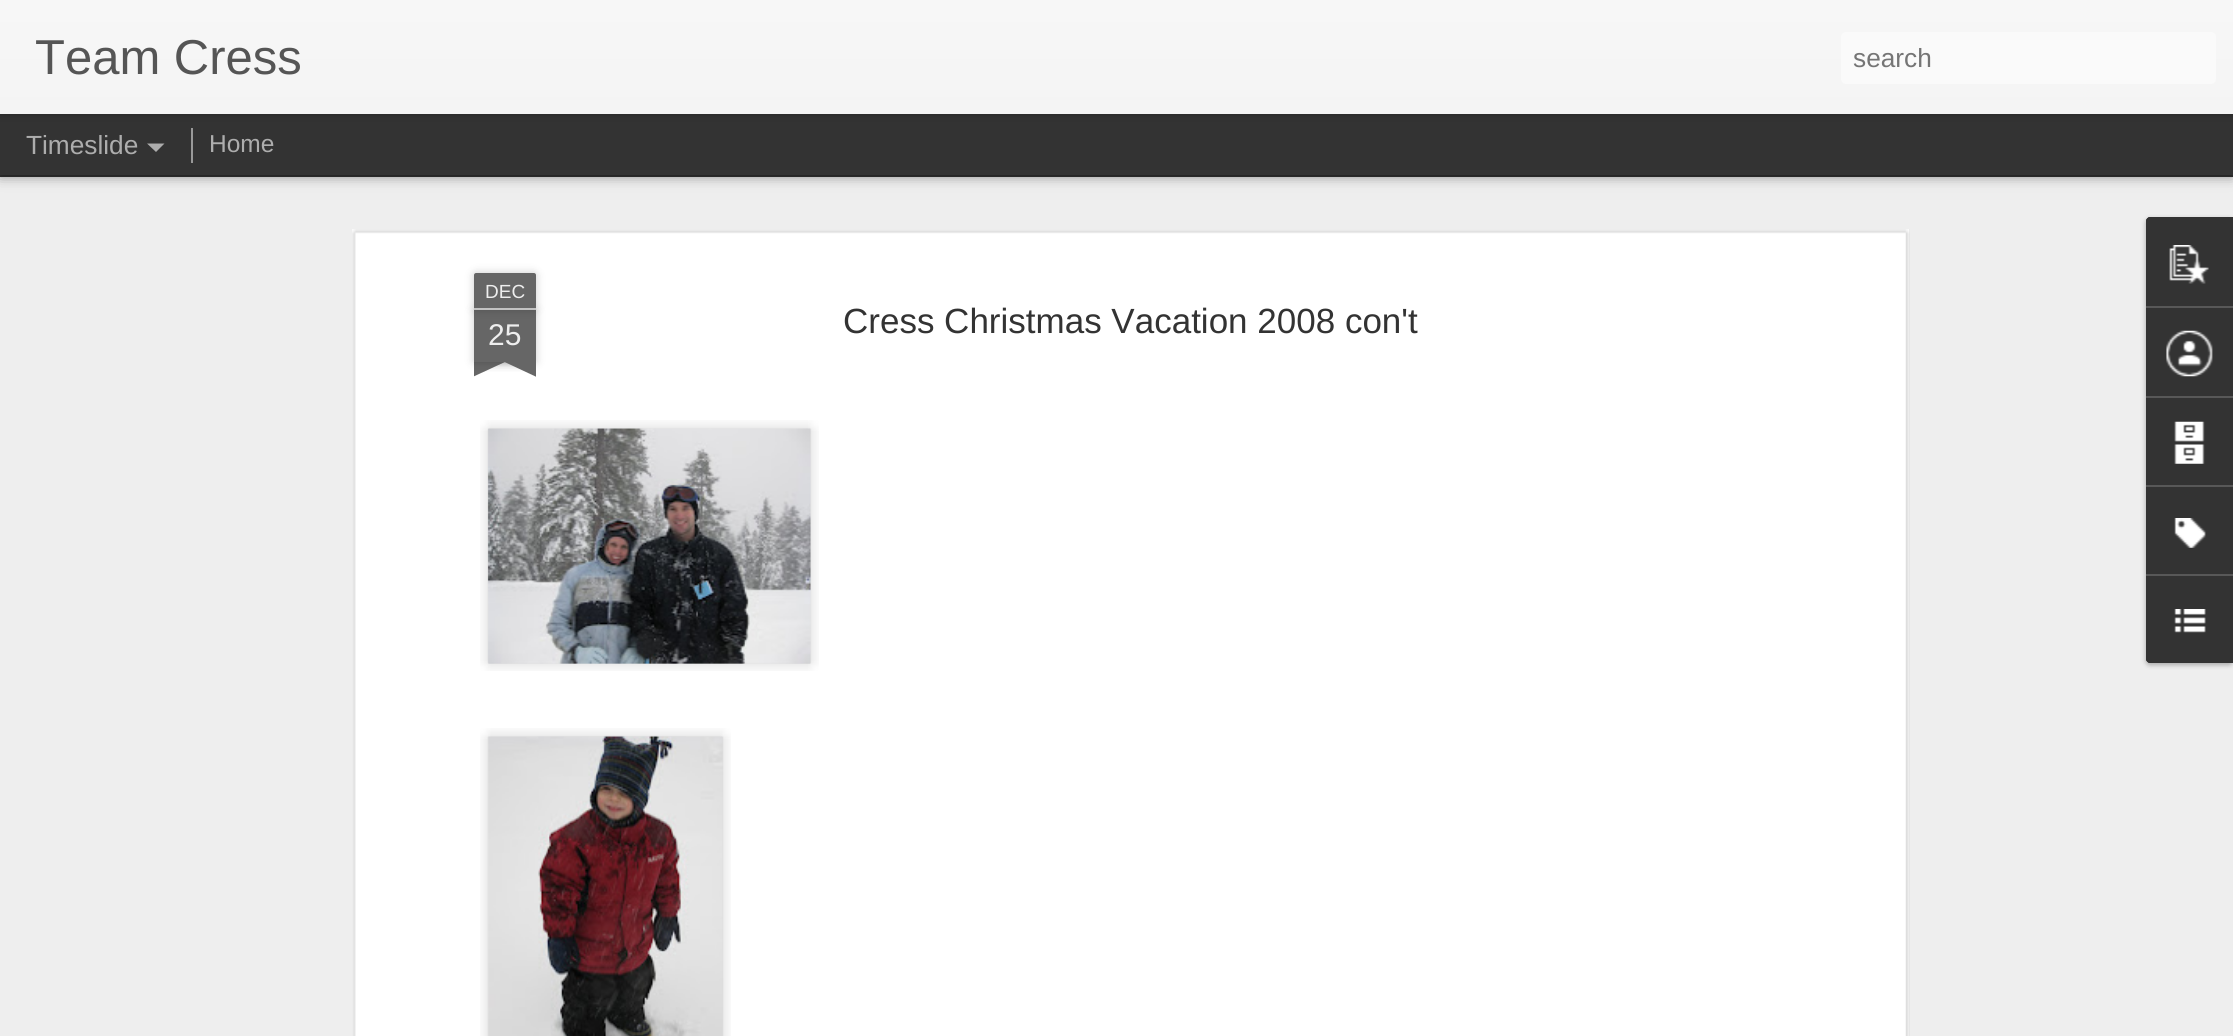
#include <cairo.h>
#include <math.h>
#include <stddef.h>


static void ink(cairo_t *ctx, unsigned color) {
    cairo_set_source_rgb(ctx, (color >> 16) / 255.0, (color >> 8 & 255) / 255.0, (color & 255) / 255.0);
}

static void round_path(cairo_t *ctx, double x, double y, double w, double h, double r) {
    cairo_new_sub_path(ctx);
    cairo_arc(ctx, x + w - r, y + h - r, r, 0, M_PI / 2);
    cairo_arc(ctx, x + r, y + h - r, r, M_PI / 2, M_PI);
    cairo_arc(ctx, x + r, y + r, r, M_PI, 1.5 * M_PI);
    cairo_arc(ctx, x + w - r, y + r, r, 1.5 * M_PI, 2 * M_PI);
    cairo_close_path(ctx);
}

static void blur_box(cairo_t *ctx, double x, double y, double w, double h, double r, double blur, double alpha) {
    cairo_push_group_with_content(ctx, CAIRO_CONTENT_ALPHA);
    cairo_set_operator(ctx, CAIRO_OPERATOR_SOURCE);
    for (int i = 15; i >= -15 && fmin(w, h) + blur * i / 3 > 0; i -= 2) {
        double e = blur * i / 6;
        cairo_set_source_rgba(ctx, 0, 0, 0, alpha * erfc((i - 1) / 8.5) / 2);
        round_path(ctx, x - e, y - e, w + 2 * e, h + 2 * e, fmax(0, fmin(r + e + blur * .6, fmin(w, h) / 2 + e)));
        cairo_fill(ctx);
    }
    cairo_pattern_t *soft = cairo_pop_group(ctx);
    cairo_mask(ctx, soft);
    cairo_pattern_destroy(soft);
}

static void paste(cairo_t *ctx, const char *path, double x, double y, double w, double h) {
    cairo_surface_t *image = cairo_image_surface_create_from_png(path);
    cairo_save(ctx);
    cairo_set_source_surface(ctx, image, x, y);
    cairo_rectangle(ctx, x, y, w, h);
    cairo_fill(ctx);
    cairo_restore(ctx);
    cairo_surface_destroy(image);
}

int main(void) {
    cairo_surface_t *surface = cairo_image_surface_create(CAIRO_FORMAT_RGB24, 2233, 1036);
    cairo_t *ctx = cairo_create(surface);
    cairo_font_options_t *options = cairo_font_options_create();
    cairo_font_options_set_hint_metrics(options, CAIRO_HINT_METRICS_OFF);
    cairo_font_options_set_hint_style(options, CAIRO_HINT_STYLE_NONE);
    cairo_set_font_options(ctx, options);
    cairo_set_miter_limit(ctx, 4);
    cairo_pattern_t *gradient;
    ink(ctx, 0x333333);
    cairo_paint(ctx);
    ink(ctx, 0xEEEEEE);
    cairo_rectangle(ctx, 0, 177, 2233, 859);
    cairo_fill(ctx);
    ink(ctx, 0x000000);
    blur_box(ctx, 0, 114, 2233, 61, 0, 7, 0.5);
    ink(ctx, 0x333333);
    cairo_rectangle(ctx, 0, 114, 2233, 61);
    cairo_fill(ctx);
    ink(ctx, 0x999999);
    cairo_rectangle(ctx, 191, 128, 2, 35);
    cairo_fill(ctx);
    ink(ctx, 0x000000);
    blur_box(ctx, 0, 0, 2233, 114, 0, 4.5, 0.3);
    gradient = cairo_pattern_create_linear(0, 0, 0, 114);
    cairo_pattern_add_color_stop_rgba(gradient, 0, 0.969, 0.969, 0.969, 1);
    cairo_pattern_add_color_stop_rgba(gradient, 1, 0.957, 0.957, 0.957, 1);
    cairo_set_source(ctx, gradient);
    cairo_pattern_destroy(gradient);
    cairo_rectangle(ctx, 0, 0, 2233, 114);
    cairo_fill(ctx);
    cairo_select_font_face(ctx, "Liberation Sans", CAIRO_FONT_SLANT_NORMAL, CAIRO_FONT_WEIGHT_NORMAL);
    cairo_set_font_size(ctx, 49);
    ink(ctx, 0x555555);
    cairo_move_to(ctx, 35, 74);
    cairo_show_text(ctx, "Team Cress");
    ink(ctx, 0xFAFAFA);
    round_path(ctx, 1841, 32, 375, 52, 5);
    cairo_fill(ctx);
    cairo_set_font_size(ctx, 26.25);
    ink(ctx, 0x757575);
    cairo_move_to(ctx, 1853, 67);
    cairo_show_text(ctx, "search");
    ink(ctx, 0xADADAD);
    cairo_move_to(ctx, 26, 154);
    cairo_show_text(ctx, "Timeslide");
    cairo_new_path(ctx);
    cairo_move_to(ctx, 147, 143.5);
    cairo_line_to(ctx, 164.5, 143.5);
    cairo_line_to(ctx, 156, 152);
    cairo_close_path(ctx);
    cairo_fill(ctx);
    cairo_set_font_size(ctx, 24.5);
    cairo_move_to(ctx, 209, 152);
    cairo_show_text(ctx, "Home");
    ink(ctx, 0xFFFFFF);
    cairo_rectangle(ctx, 352, 229, 1557, 807);
    cairo_fill(ctx);
    paste(ctx, "media/1.png", 352, 229, 1558, 807);
    ink(ctx, 0x000000);
    blur_box(ctx, 474, 310, 62, 52, 0, 4.5, 0.2);
    ink(ctx, 0x666666);
    cairo_rectangle(ctx, 474, 310, 62, 52);
    cairo_fill(ctx);
    ink(ctx, 0x000000);
    blur_box(ctx, 474, 273, 62, 37, 2, 4.5, 0.2);
    ink(ctx, 0x666666);
    cairo_new_path(ctx);
    cairo_move_to(ctx, 476, 273);
    cairo_line_to(ctx, 534, 273);
    cairo_curve_to(ctx, 535, 273, 536, 274, 536, 275);
    cairo_line_to(ctx, 536, 310);
    cairo_line_to(ctx, 474, 310);
    cairo_line_to(ctx, 474, 275);
    cairo_curve_to(ctx, 474, 274, 475, 273, 476, 273);
    cairo_close_path(ctx);
    cairo_fill(ctx);
    ink(ctx, 0xC2C2C2);
    cairo_rectangle(ctx, 474, 308, 62, 2);
    cairo_fill(ctx);
    cairo_set_font_size(ctx, 19);
    ink(ctx, 0xEEEEEE);
    cairo_move_to(ctx, 485, 298);
    cairo_show_text(ctx, "DEC");
    cairo_set_font_size(ctx, 30);
    cairo_move_to(ctx, 488, 345);
    cairo_show_text(ctx, "25");
    cairo_save(ctx);
    cairo_rectangle(ctx, 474, 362, 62, 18);
    cairo_clip(ctx);
    ink(ctx, 0x000000);
    blur_box(ctx, 459, 345, 87, 17, 0, 4.5, 0.2);
    cairo_restore(ctx);
    cairo_save(ctx);
    cairo_rectangle(ctx, 474, 362, 62, 18);
    cairo_clip(ctx);
    ink(ctx, 0x666666);
    cairo_new_path(ctx);
    cairo_move_to(ctx, 459, 364);
    cairo_line_to(ctx, 538, 327);
    cairo_line_to(ctx, 546, 343);
    cairo_line_to(ctx, 466, 380);
    cairo_close_path(ctx);
    cairo_fill(ctx);
    cairo_restore(ctx);
    cairo_save(ctx);
    cairo_rectangle(ctx, 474, 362, 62, 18);
    cairo_clip(ctx);
    ink(ctx, 0x000000);
    blur_box(ctx, 464, 345, 87, 17, 0, 4.5, 0.2);
    cairo_restore(ctx);
    cairo_save(ctx);
    cairo_rectangle(ctx, 474, 362, 62, 18);
    cairo_clip(ctx);
    ink(ctx, 0x666666);
    cairo_new_path(ctx);
    cairo_move_to(ctx, 472, 327);
    cairo_line_to(ctx, 551, 364);
    cairo_line_to(ctx, 543, 380);
    cairo_line_to(ctx, 464, 343);
    cairo_close_path(ctx);
    cairo_fill(ctx);
    cairo_restore(ctx);
    cairo_set_font_size(ctx, 35);
    ink(ctx, 0x333333);
    cairo_move_to(ctx, 843, 333);
    cairo_show_text(ctx, "Cress Christmas Vacation 2008 con't");
    paste(ctx, "media/2.png", 480, 420, 339, 251);
    paste(ctx, "media/3.png", 487, 428, 324, 236);
    paste(ctx, "media/4.png", 480, 728, 251, 308);
    paste(ctx, "media/5.png", 537, 735, 149, 301);
    ink(ctx, 0x000000);
    blur_box(ctx, 2146, 219, 87, 446, 4, 2.5, 0.3);
    ink(ctx, 0x333333);
    cairo_new_path(ctx);
    cairo_move_to(ctx, 2150, 217);
    cairo_line_to(ctx, 2233, 217);
    cairo_line_to(ctx, 2233, 663);
    cairo_line_to(ctx, 2150, 663);
    cairo_curve_to(ctx, 2148, 663, 2146, 661, 2146, 659);
    cairo_line_to(ctx, 2146, 221);
    cairo_curve_to(ctx, 2146, 219, 2148, 217, 2150, 217);
    cairo_close_path(ctx);
    cairo_fill(ctx);
    cairo_new_path(ctx);
    cairo_move_to(ctx, 2150, 217);
    cairo_line_to(ctx, 2233, 217);
    cairo_line_to(ctx, 2233, 306);
    cairo_line_to(ctx, 2146, 306);
    cairo_line_to(ctx, 2146, 221);
    cairo_curve_to(ctx, 2146, 219, 2148, 217, 2150, 217);
    cairo_close_path(ctx);
    cairo_fill(ctx);
    paste(ctx, "media/6.png", 2169, 245, 40, 39);
    ink(ctx, 0x585858);
    cairo_rectangle(ctx, 2146, 306, 87, 2);
    cairo_fill(ctx);
    paste(ctx, "media/7.png", 2166, 330, 47, 47);
    cairo_rectangle(ctx, 2146, 396, 87, 2);
    cairo_fill(ctx);
    paste(ctx, "media/8.png", 2174, 421, 31, 43);
    cairo_rectangle(ctx, 2146, 485, 87, 2);
    cairo_fill(ctx);
    paste(ctx, "media/9.png", 2174, 518, 32, 30);
    ink(ctx, 0x333333);
    cairo_new_path(ctx);
    cairo_move_to(ctx, 2146, 574);
    cairo_line_to(ctx, 2233, 574);
    cairo_line_to(ctx, 2233, 663);
    cairo_line_to(ctx, 2150, 663);
    cairo_curve_to(ctx, 2148, 663, 2146, 661, 2146, 659);
    cairo_close_path(ctx);
    cairo_fill(ctx);
    ink(ctx, 0x585858);
    cairo_rectangle(ctx, 2146, 574, 87, 2);
    cairo_fill(ctx);
    paste(ctx, "media/10.png", 2174, 609, 32, 24);
    cairo_surface_write_to_png(surface, "image.png");
    cairo_font_options_destroy(options);
    cairo_destroy(ctx);
    cairo_surface_destroy(surface);
    return 0;
}
